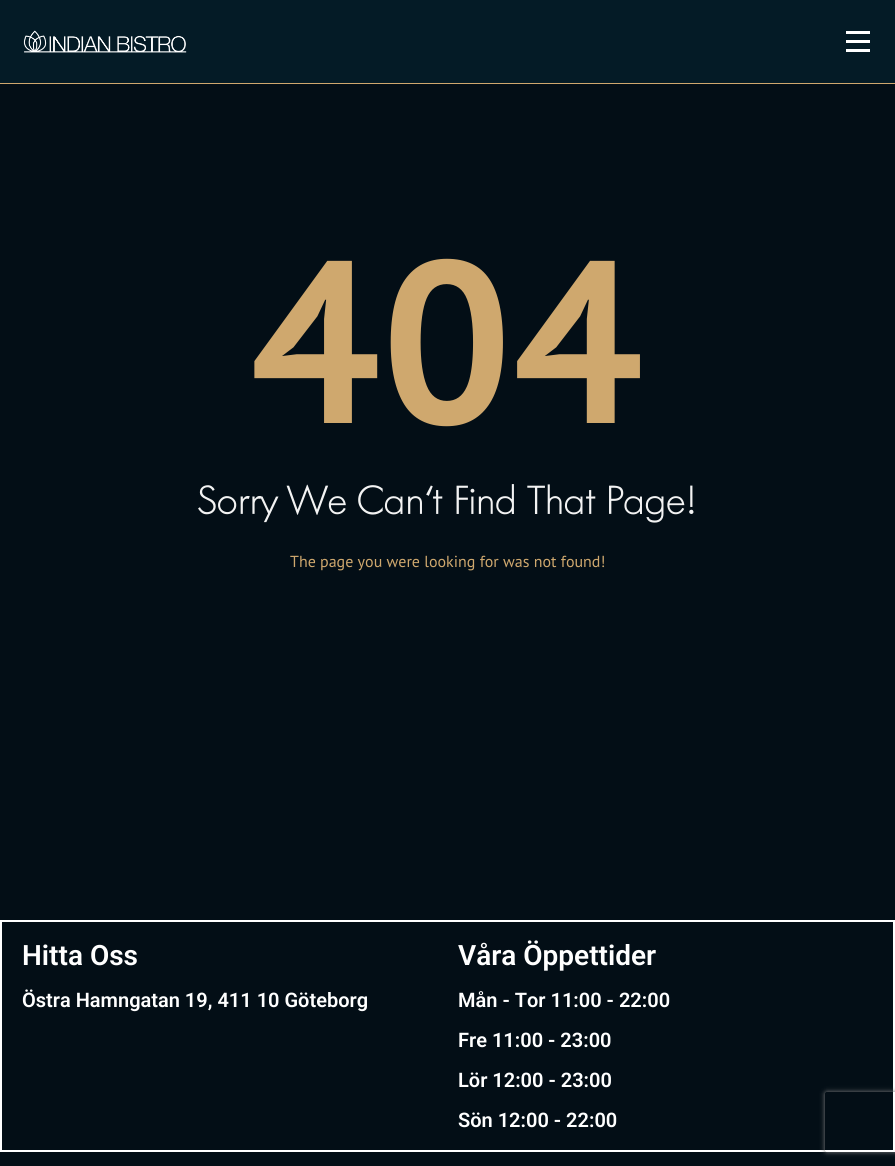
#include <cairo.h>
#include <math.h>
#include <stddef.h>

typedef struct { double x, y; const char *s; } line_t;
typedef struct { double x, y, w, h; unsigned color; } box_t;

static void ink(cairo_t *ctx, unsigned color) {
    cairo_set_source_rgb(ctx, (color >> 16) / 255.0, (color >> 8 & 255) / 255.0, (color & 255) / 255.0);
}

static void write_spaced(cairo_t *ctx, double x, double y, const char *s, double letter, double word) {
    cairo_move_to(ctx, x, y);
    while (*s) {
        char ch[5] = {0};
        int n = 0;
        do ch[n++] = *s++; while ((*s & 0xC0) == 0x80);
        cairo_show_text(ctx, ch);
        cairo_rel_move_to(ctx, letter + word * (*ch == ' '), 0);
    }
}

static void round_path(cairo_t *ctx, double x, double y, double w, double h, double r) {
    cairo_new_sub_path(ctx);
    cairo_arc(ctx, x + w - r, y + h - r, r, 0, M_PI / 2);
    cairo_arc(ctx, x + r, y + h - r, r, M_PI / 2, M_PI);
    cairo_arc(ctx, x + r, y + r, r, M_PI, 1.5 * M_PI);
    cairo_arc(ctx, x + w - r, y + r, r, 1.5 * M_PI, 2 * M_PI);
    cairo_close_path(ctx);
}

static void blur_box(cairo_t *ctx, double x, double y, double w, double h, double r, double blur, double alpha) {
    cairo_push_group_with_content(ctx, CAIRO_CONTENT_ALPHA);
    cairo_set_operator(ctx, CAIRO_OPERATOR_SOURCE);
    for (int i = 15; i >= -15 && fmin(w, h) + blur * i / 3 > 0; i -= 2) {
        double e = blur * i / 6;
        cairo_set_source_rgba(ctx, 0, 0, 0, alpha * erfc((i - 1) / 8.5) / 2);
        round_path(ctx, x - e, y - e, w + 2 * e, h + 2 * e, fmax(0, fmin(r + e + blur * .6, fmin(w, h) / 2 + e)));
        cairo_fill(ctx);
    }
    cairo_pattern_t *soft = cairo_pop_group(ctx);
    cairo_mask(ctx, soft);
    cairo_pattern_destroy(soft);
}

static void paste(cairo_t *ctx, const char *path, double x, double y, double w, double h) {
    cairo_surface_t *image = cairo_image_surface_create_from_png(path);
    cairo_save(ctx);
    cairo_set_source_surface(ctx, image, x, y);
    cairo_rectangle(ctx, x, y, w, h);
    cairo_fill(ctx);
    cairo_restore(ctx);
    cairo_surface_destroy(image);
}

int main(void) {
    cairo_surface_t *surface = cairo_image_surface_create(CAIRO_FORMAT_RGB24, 895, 1166);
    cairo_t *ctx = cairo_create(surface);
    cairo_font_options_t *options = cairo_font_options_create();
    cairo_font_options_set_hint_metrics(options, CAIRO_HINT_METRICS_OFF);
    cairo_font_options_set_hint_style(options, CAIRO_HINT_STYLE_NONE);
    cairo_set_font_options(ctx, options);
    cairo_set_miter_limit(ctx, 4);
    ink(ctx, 0x030E16);
    cairo_paint(ctx);
    ink(ctx, 0x041B26);
    cairo_rectangle(ctx, 0, 0, 895, 83);
    cairo_fill(ctx);
    ink(ctx, 0xCFA86E);
    cairo_rectangle(ctx, 0, 83, 895, 1);
    cairo_fill(ctx);
    paste(ctx, "media/1.png", 23, 30, 164, 23);
    {
        static const box_t items[] = {
            {846, 31, 24, 3, 0xFFFFFF},
            {846, 40, 24, 3, 0xFFFFFF},
            {846, 49, 24, 3, 0xFFFFFF},
        };
        for (size_t i = 0; i < sizeof items / sizeof *items; i++) {
            ink(ctx, items[i].color);
            cairo_rectangle(ctx, items[i].x, items[i].y, items[i].w, items[i].h);
            cairo_fill(ctx);
        }
    }
    cairo_select_font_face(ctx, "PT Sans", CAIRO_FONT_SLANT_NORMAL, CAIRO_FONT_WEIGHT_BOLD);
    cairo_set_font_size(ctx, 230);
    ink(ctx, 0xCFA86E);
    write_spaced(ctx, 250, 423, "404", 1, 0);
    cairo_select_font_face(ctx, "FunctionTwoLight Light", CAIRO_FONT_SLANT_NORMAL, CAIRO_FONT_WEIGHT_NORMAL);
    cairo_set_font_size(ctx, 40);
    ink(ctx, 0xF3F3F3);
    write_spaced(ctx, 198, 514, "Sorry We Can't Find That Page!", 1, 0);
    cairo_select_font_face(ctx, "PT Sans", CAIRO_FONT_SLANT_NORMAL, CAIRO_FONT_WEIGHT_NORMAL);
    cairo_set_font_size(ctx, 16);
    ink(ctx, 0xCFA86E);
    cairo_move_to(ctx, 290, 567);
    cairo_show_text(ctx, "The page you were looking for was not found!");
    cairo_rectangle(ctx, 1, 921, 893, 230);
    ink(ctx, 0xFFFFFF);
    cairo_stroke(ctx);
    cairo_select_font_face(ctx, "Roboto SemiBold", CAIRO_FONT_SLANT_NORMAL, CAIRO_FONT_WEIGHT_NORMAL);
    cairo_set_font_size(ctx, 28);
    cairo_move_to(ctx, 22, 965);
    cairo_show_text(ctx, "Hitta Oss");
    cairo_set_font_size(ctx, 20);
    cairo_move_to(ctx, 22, 1007);
    cairo_show_text(ctx, "Östra Hamngatan 19, 411 10 Göteborg");
    cairo_set_font_size(ctx, 28);
    cairo_move_to(ctx, 458, 965);
    cairo_show_text(ctx, "Våra Öppettider");
    cairo_set_font_size(ctx, 20);
    {
        static const line_t items[] = {
            {458, 1007, "Mån - Tor 11:00 - 22:00"},
            {458, 1047, "Fre 11:00 - 23:00"},
            {458, 1087, "Lör 12:00 - 23:00"},
            {458, 1127, "Sön 12:00 - 22:00"},
        };
        for (size_t i = 0; i < sizeof items / sizeof *items; i++) {
            cairo_move_to(ctx, items[i].x, items[i].y);
            cairo_show_text(ctx, items[i].s);
        }
    }
    cairo_save(ctx);
    cairo_set_fill_rule(ctx, CAIRO_FILL_RULE_EVEN_ODD);
    cairo_new_path(ctx);
    cairo_move_to(ctx, 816, 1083);
    cairo_line_to(ctx, 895, 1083);
    cairo_line_to(ctx, 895, 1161);
    cairo_line_to(ctx, 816, 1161);
    cairo_close_path(ctx);
    cairo_move_to(ctx, 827, 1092);
    cairo_line_to(ctx, 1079, 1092);
    cairo_curve_to(ctx, 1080, 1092, 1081, 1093, 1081, 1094);
    cairo_line_to(ctx, 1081, 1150);
    cairo_curve_to(ctx, 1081, 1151, 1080, 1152, 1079, 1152);
    cairo_line_to(ctx, 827, 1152);
    cairo_curve_to(ctx, 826, 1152, 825, 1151, 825, 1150);
    cairo_line_to(ctx, 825, 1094);
    cairo_curve_to(ctx, 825, 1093, 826, 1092, 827, 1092);
    cairo_close_path(ctx);
    cairo_clip(ctx);
    ink(ctx, 0x808080);
    blur_box(ctx, 825, 1092, 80, 60, 2, 2.5, 1);
    cairo_restore(ctx);
    cairo_surface_write_to_png(surface, "image.png");
    cairo_font_options_destroy(options);
    cairo_destroy(ctx);
    cairo_surface_destroy(surface);
    return 0;
}
